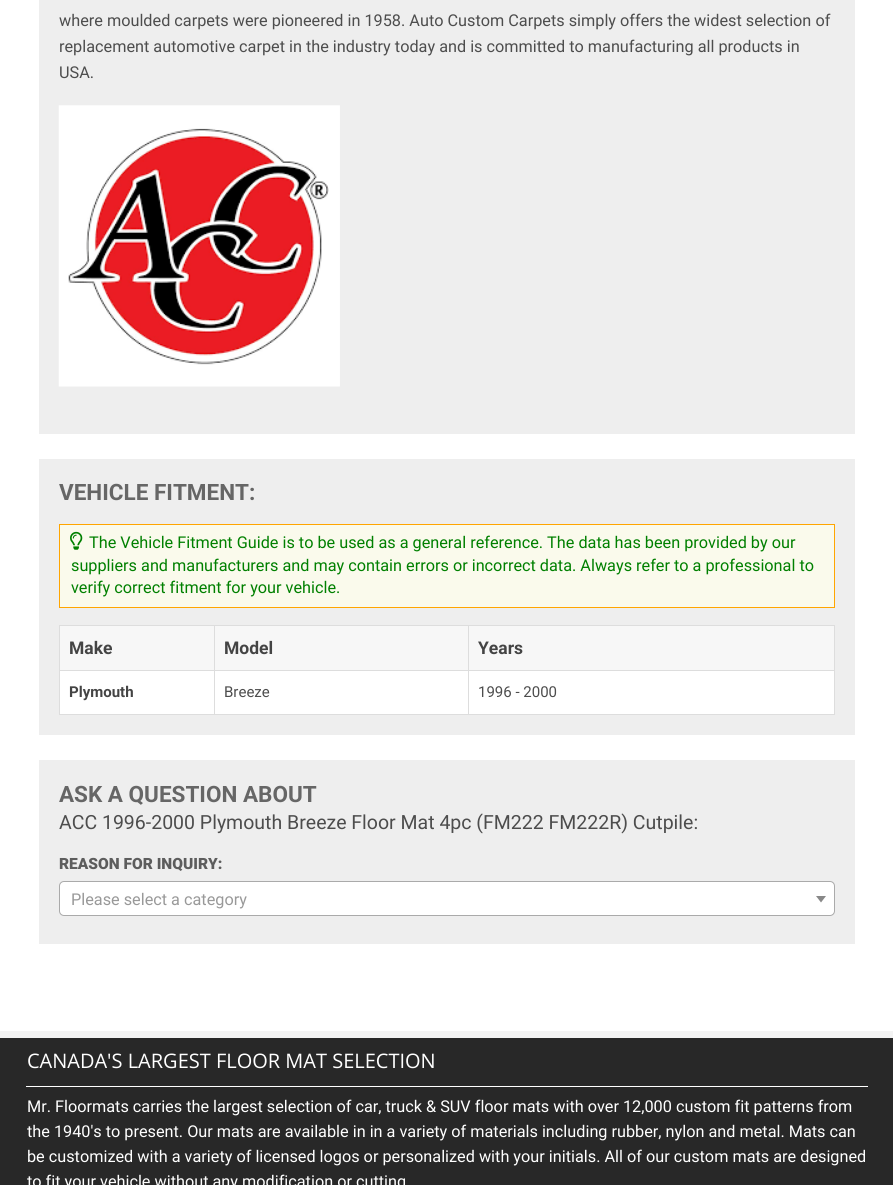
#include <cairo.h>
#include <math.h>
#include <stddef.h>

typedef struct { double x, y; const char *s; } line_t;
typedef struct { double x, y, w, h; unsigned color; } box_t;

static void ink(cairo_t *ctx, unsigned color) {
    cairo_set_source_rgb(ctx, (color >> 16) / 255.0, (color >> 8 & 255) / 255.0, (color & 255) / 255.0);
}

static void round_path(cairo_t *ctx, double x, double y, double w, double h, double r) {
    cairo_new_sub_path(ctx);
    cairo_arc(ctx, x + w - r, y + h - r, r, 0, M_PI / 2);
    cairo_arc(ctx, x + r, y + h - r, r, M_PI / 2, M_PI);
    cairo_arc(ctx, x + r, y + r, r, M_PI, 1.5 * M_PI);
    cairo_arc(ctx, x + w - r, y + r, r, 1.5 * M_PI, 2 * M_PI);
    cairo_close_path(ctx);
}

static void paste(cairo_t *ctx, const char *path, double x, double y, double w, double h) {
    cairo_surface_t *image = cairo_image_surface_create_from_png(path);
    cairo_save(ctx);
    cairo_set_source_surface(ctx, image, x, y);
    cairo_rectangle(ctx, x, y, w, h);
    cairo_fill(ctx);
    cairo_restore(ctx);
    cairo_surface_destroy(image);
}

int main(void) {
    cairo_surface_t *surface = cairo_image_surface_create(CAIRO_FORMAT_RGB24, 893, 1185);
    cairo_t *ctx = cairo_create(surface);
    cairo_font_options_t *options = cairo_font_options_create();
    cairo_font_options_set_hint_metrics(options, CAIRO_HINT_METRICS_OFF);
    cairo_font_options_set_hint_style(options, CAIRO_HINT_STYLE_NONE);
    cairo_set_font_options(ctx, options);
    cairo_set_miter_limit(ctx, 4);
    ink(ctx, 0xF3F3F3);
    cairo_paint(ctx);
    ink(ctx, 0xFFFFFF);
    cairo_rectangle(ctx, 0, 0, 893, 1031);
    cairo_fill(ctx);
    ink(ctx, 0xEEEEEE);
    cairo_rectangle(ctx, 39, 0, 816, 434);
    cairo_fill(ctx);
    cairo_select_font_face(ctx, "Roboto", CAIRO_FONT_SLANT_NORMAL, CAIRO_FONT_WEIGHT_NORMAL);
    cairo_set_font_size(ctx, 16.25);
    ink(ctx, 0x4D4D4D);
    {
        static const line_t items[] = {
            {59, 26, "where moulded carpets were pioneered in 1958. Auto Custom Carpets simply offers the widest selection of"},
            {59, 52, "replacement automotive carpet in the industry today and is committed to manufacturing all products in"},
            {59, 78, "USA."},
        };
        for (size_t i = 0; i < sizeof items / sizeof *items; i++) {
            cairo_move_to(ctx, items[i].x, items[i].y);
            cairo_show_text(ctx, items[i].s);
        }
    }
    paste(ctx, "media/1.png", 58, 105, 282, 282);
    ink(ctx, 0xEEEEEE);
    cairo_rectangle(ctx, 39, 459, 816, 276);
    cairo_fill(ctx);
    cairo_select_font_face(ctx, "Roboto", CAIRO_FONT_SLANT_NORMAL, CAIRO_FONT_WEIGHT_BOLD);
    cairo_set_font_size(ctx, 22.5);
    ink(ctx, 0x666666);
    cairo_move_to(ctx, 59, 500);
    cairo_show_text(ctx, "VEHICLE FITMENT:");
    ink(ctx, 0xFAFAEC);
    cairo_rectangle(ctx, 59.5, 524.5, 775, 83);
    cairo_fill_preserve(ctx);
    ink(ctx, 0xFFA500);
    cairo_set_line_width(ctx, 1);
    cairo_stroke(ctx);
    paste(ctx, "media/2.png", 70, 531, 13, 19);
    cairo_select_font_face(ctx, "Roboto", CAIRO_FONT_SLANT_NORMAL, CAIRO_FONT_WEIGHT_NORMAL);
    cairo_set_font_size(ctx, 16.25);
    ink(ctx, 0x008000);
    {
        static const line_t items[] = {
            {89, 548, "The Vehicle Fitment Guide is to be used as a general reference. The data has been provided by our"},
            {71, 571, "suppliers and manufacturers and may contain errors or incorrect data. Always refer to a professional to"},
            {71, 593, "verify correct fitment for your vehicle."},
        };
        for (size_t i = 0; i < sizeof items / sizeof *items; i++) {
            cairo_move_to(ctx, items[i].x, items[i].y);
            cairo_show_text(ctx, items[i].s);
        }
    }
    {
        static const box_t items[] = {
            {59, 625, 776, 1, 0xDDDDDD},
            {59, 625, 1, 90, 0xDDDDDD},
            {60, 626, 154, 44, 0xF7F7F7},
            {834, 625, 1, 90, 0xDDDDDD},
            {468, 714, 367, 1, 0xDDDDDD},
            {468, 670, 1, 45, 0xDDDDDD},
            {468, 670, 367, 1, 0xDDDDDD},
            {468, 625, 1, 46, 0xDDDDDD},
            {214, 714, 255, 1, 0xDDDDDD},
            {214, 670, 1, 45, 0xDDDDDD},
            {214, 670, 255, 1, 0xDDDDDD},
            {214, 625, 1, 46, 0xDDDDDD},
            {59, 670, 156, 1, 0xDDDDDD},
        };
        for (size_t i = 0; i < sizeof items / sizeof *items; i++) {
            ink(ctx, items[i].color);
            cairo_rectangle(ctx, items[i].x, items[i].y, items[i].w, items[i].h);
            cairo_fill(ctx);
        }
    }
    cairo_select_font_face(ctx, "Roboto", CAIRO_FONT_SLANT_NORMAL, CAIRO_FONT_WEIGHT_BOLD);
    cairo_set_font_size(ctx, 17.5);
    ink(ctx, 0x444444);
    cairo_move_to(ctx, 69, 654);
    cairo_show_text(ctx, "Make");
    ink(ctx, 0xF7F7F7);
    cairo_rectangle(ctx, 215, 626, 253, 44);
    cairo_fill(ctx);
    ink(ctx, 0x444444);
    cairo_move_to(ctx, 224, 654);
    cairo_show_text(ctx, "Model");
    ink(ctx, 0xF7F7F7);
    cairo_rectangle(ctx, 469, 626, 365, 44);
    cairo_fill(ctx);
    ink(ctx, 0x444444);
    cairo_move_to(ctx, 478, 654);
    cairo_show_text(ctx, "Years");
    ink(ctx, 0xFFFFFF);
    cairo_rectangle(ctx, 60, 671, 154, 43);
    cairo_fill(ctx);
    ink(ctx, 0xDDDDDD);
    cairo_rectangle(ctx, 59, 714, 156, 1);
    cairo_fill(ctx);
    cairo_set_font_size(ctx, 15);
    ink(ctx, 0x444444);
    cairo_move_to(ctx, 69, 697);
    cairo_show_text(ctx, "Plymouth");
    ink(ctx, 0xFFFFFF);
    cairo_rectangle(ctx, 215, 671, 253, 43);
    cairo_fill(ctx);
    cairo_select_font_face(ctx, "Roboto", CAIRO_FONT_SLANT_NORMAL, CAIRO_FONT_WEIGHT_NORMAL);
    ink(ctx, 0x4D4D4D);
    cairo_move_to(ctx, 224, 697);
    cairo_show_text(ctx, "Breeze");
    ink(ctx, 0xFFFFFF);
    cairo_rectangle(ctx, 469, 671, 365, 43);
    cairo_fill(ctx);
    ink(ctx, 0x4D4D4D);
    cairo_move_to(ctx, 478, 697);
    cairo_show_text(ctx, "1996 - 2000");
    ink(ctx, 0xEEEEEE);
    cairo_rectangle(ctx, 39, 760, 816, 184);
    cairo_fill(ctx);
    cairo_select_font_face(ctx, "Roboto", CAIRO_FONT_SLANT_NORMAL, CAIRO_FONT_WEIGHT_BOLD);
    cairo_set_font_size(ctx, 22.5);
    ink(ctx, 0x666666);
    cairo_move_to(ctx, 59, 802);
    cairo_show_text(ctx, "ASK A QUESTION ABOUT");
    cairo_select_font_face(ctx, "Roboto", CAIRO_FONT_SLANT_NORMAL, CAIRO_FONT_WEIGHT_NORMAL);
    cairo_set_font_size(ctx, 19.5);
    ink(ctx, 0x4D4D4D);
    cairo_move_to(ctx, 59, 829);
    cairo_show_text(ctx, "ACC 1996-2000 Plymouth Breeze Floor Mat 4pc (FM222 FM222R) Cutpile:");
    cairo_select_font_face(ctx, "Roboto Black", CAIRO_FONT_SLANT_NORMAL, CAIRO_FONT_WEIGHT_NORMAL);
    cairo_set_font_size(ctx, 15.5);
    ink(ctx, 0x5D5D5D);
    cairo_move_to(ctx, 59, 869);
    cairo_show_text(ctx, "REASON FOR INQUIRY:");
    ink(ctx, 0xFFFFFF);
    round_path(ctx, 59.5, 881.5, 775, 34, 4.5);
    cairo_fill_preserve(ctx);
    ink(ctx, 0xAAAAAA);
    cairo_stroke(ctx);
    cairo_select_font_face(ctx, "Roboto", CAIRO_FONT_SLANT_NORMAL, CAIRO_FONT_WEIGHT_NORMAL);
    cairo_set_font_size(ctx, 16.25);
    ink(ctx, 0x999999);
    cairo_move_to(ctx, 71, 905);
    cairo_show_text(ctx, "Please select a category");
    ink(ctx, 0x888888);
    cairo_new_path(ctx);
    cairo_move_to(ctx, 816, 896);
    cairo_line_to(ctx, 826, 896);
    cairo_line_to(ctx, 821, 902.5);
    cairo_close_path(ctx);
    cairo_fill(ctx);
    ink(ctx, 0x282828);
    cairo_rectangle(ctx, 0, 1038, 893, 147);
    cairo_fill(ctx);
    ink(ctx, 0xFFFFFF);
    cairo_rectangle(ctx, 26, 1086, 842, 1);
    cairo_fill(ctx);
    cairo_select_font_face(ctx, "Open Sans", CAIRO_FONT_SLANT_NORMAL, CAIRO_FONT_WEIGHT_NORMAL);
    cairo_set_font_size(ctx, 20);
    cairo_move_to(ctx, 27, 1068);
    cairo_show_text(ctx, "CANADA'S LARGEST FLOOR MAT SELECTION");
    cairo_select_font_face(ctx, "Roboto", CAIRO_FONT_SLANT_NORMAL, CAIRO_FONT_WEIGHT_NORMAL);
    cairo_set_font_size(ctx, 16.25);
    {
        static const line_t items[] = {
            {27, 1112, "Mr. Floormats carries the largest selection of car, truck & SUV floor mats with over 12,000 custom fit patterns from"},
            {27, 1137, "the 1940's to present. Our mats are available in in a variety of materials including rubber, nylon and metal. Mats can"},
            {27, 1162, "be customized with a variety of licensed logos or personalized with your initials. All of our custom mats are designed"},
            {27, 1187, "to fit your vehicle without any modification or cutting"},
        };
        for (size_t i = 0; i < sizeof items / sizeof *items; i++) {
            cairo_move_to(ctx, items[i].x, items[i].y);
            cairo_show_text(ctx, items[i].s);
        }
    }
    cairo_surface_write_to_png(surface, "image.png");
    cairo_font_options_destroy(options);
    cairo_destroy(ctx);
    cairo_surface_destroy(surface);
    return 0;
}
